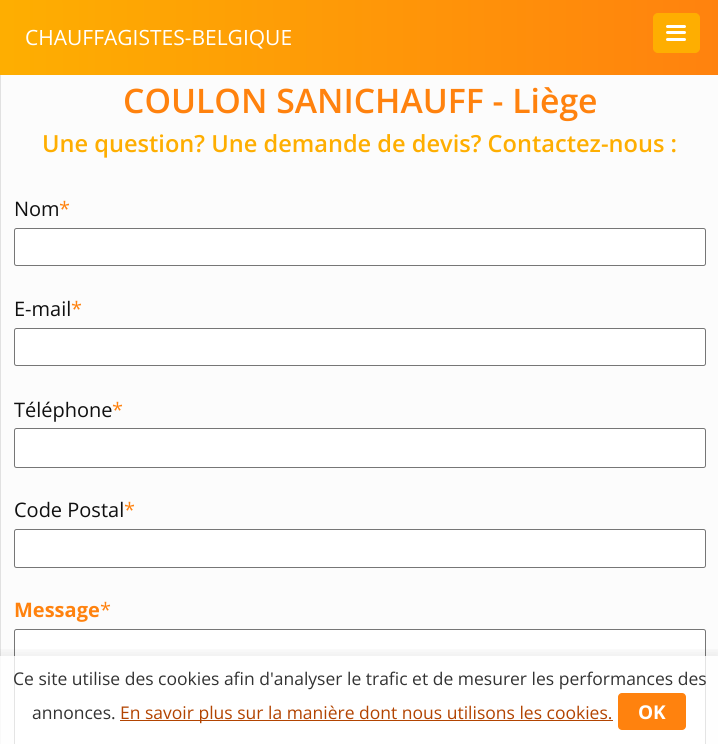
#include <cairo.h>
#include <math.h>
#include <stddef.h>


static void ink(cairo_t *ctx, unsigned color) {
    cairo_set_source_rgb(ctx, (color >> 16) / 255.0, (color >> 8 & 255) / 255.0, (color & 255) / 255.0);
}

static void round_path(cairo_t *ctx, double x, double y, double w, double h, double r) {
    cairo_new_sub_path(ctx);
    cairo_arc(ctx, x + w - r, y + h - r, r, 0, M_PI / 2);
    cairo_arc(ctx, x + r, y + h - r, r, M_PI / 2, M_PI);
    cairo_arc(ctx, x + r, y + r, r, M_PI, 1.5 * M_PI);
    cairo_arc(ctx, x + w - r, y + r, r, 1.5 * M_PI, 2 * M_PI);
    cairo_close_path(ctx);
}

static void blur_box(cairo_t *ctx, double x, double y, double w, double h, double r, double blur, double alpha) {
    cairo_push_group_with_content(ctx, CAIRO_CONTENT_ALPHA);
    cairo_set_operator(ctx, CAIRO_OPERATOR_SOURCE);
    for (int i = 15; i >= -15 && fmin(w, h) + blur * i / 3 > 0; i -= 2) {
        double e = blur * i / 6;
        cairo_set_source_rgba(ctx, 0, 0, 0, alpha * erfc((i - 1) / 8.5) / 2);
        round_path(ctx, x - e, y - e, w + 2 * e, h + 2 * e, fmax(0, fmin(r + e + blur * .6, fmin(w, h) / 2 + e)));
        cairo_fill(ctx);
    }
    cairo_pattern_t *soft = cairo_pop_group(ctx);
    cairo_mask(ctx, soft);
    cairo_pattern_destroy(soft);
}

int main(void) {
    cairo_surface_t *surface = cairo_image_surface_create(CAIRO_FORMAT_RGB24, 718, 744);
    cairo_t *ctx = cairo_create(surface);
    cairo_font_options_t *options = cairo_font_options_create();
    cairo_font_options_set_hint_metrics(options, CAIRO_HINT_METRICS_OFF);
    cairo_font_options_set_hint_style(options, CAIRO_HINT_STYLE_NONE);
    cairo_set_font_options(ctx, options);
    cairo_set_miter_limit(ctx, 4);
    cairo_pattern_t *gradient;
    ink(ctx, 0xFCFCFC);
    cairo_paint(ctx);
    gradient = cairo_pattern_create_linear(0, 38, 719, 37);
    cairo_pattern_add_color_stop_rgba(gradient, 0.01, 0.996, 0.682, 0.004, 1);
    cairo_pattern_add_color_stop_rgba(gradient, 1, 1, 0.51, 0.055, 1);
    cairo_set_source(ctx, gradient);
    cairo_pattern_destroy(gradient);
    cairo_rectangle(ctx, 0, 0, 718, 75);
    cairo_fill(ctx);
    cairo_select_font_face(ctx, "Open Sans", CAIRO_FONT_SLANT_NORMAL, CAIRO_FONT_WEIGHT_NORMAL);
    cairo_set_font_size(ctx, 21);
    ink(ctx, 0xFFFFFF);
    cairo_move_to(ctx, 25, 45);
    cairo_show_text(ctx, "CHAUFFAGISTES-BELGIQUE");
    ink(ctx, 0xFEAE01);
    round_path(ctx, 653.5, 13.5, 46, 39, 4.5);
    cairo_fill_preserve(ctx);
    cairo_set_line_width(ctx, 1);
    cairo_stroke(ctx);
    ink(ctx, 0xFFFFFF);
    round_path(ctx, 666, 25, 20, 3, 1.5);
    cairo_fill(ctx);
    round_path(ctx, 666, 31, 20, 3, 1.5);
    cairo_fill(ctx);
    round_path(ctx, 666, 38, 20, 3, 1.5);
    cairo_fill(ctx);
    ink(ctx, 0xE1E1E1);
    cairo_rectangle(ctx, 0, 75, 1, 669);
    cairo_fill(ctx);
    cairo_select_font_face(ctx, "Open Sans SemiBold", CAIRO_FONT_SLANT_NORMAL, CAIRO_FONT_WEIGHT_NORMAL);
    cairo_set_font_size(ctx, 33.75);
    ink(ctx, 0xFF820E);
    cairo_move_to(ctx, 123, 113);
    cairo_show_text(ctx, "COULON SANICHAUFF - Liège");
    cairo_set_font_size(ctx, 23.6);
    ink(ctx, 0xFEAE01);
    cairo_move_to(ctx, 42, 152);
    cairo_show_text(ctx, "Une question? Une demande de devis? Contactez-nous :");
    cairo_select_font_face(ctx, "Open Sans", CAIRO_FONT_SLANT_NORMAL, CAIRO_FONT_WEIGHT_NORMAL);
    cairo_set_font_size(ctx, 20);
    ink(ctx, 0x101010);
    cairo_move_to(ctx, 14, 216);
    cairo_show_text(ctx, "Nom");
    ink(ctx, 0xFF820E);
    cairo_move_to(ctx, 59, 216);
    cairo_show_text(ctx, "*");
    ink(ctx, 0xFFFFFF);
    round_path(ctx, 14.5, 228.5, 691, 37, 2);
    cairo_fill_preserve(ctx);
    ink(ctx, 0x767676);
    cairo_stroke(ctx);
    ink(ctx, 0x101010);
    cairo_move_to(ctx, 14, 316);
    cairo_show_text(ctx, "E-mail");
    ink(ctx, 0xFF820E);
    cairo_move_to(ctx, 71, 316);
    cairo_show_text(ctx, "*");
    ink(ctx, 0xFFFFFF);
    round_path(ctx, 14.5, 328.5, 691, 37, 2);
    cairo_fill_preserve(ctx);
    ink(ctx, 0x767676);
    cairo_stroke(ctx);
    ink(ctx, 0x101010);
    cairo_move_to(ctx, 14, 417);
    cairo_show_text(ctx, "Téléphone");
    ink(ctx, 0xFF820E);
    cairo_move_to(ctx, 112, 417);
    cairo_show_text(ctx, "*");
    ink(ctx, 0xFFFFFF);
    round_path(ctx, 14.5, 428.5, 691, 39, 2);
    cairo_fill_preserve(ctx);
    ink(ctx, 0x767676);
    cairo_stroke(ctx);
    ink(ctx, 0x101010);
    cairo_move_to(ctx, 14, 517);
    cairo_show_text(ctx, "Code Postal");
    ink(ctx, 0xFF820E);
    cairo_move_to(ctx, 124, 517);
    cairo_show_text(ctx, "*");
    ink(ctx, 0xFFFFFF);
    round_path(ctx, 14.5, 529.5, 691, 38, 2);
    cairo_fill_preserve(ctx);
    ink(ctx, 0x767676);
    cairo_stroke(ctx);
    cairo_select_font_face(ctx, "Open Sans", CAIRO_FONT_SLANT_NORMAL, CAIRO_FONT_WEIGHT_BOLD);
    ink(ctx, 0xFF820E);
    cairo_move_to(ctx, 14, 617);
    cairo_show_text(ctx, "Message");
    cairo_select_font_face(ctx, "Open Sans", CAIRO_FONT_SLANT_NORMAL, CAIRO_FONT_WEIGHT_NORMAL);
    cairo_move_to(ctx, 100, 617);
    cairo_show_text(ctx, "*");
    ink(ctx, 0xFFFFFF);
    round_path(ctx, 14.5, 629.5, 691, 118, 2);
    cairo_fill_preserve(ctx);
    ink(ctx, 0x767676);
    cairo_stroke(ctx);
    cairo_save(ctx);
    cairo_rectangle(ctx, 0, 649, 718, 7);
    cairo_clip(ctx);
    ink(ctx, 0x000000);
    blur_box(ctx, 0, 653, 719, 88, 0, 6, 0.08);
    cairo_restore(ctx);
    cairo_set_source_rgba(ctx, 1, 1, 1, 0.8);
    cairo_rectangle(ctx, 0, 656, 718, 88);
    cairo_fill(ctx);
    cairo_set_font_size(ctx, 17.5);
    ink(ctx, 0x333333);
    cairo_move_to(ctx, 13, 685);
    cairo_show_text(ctx, "Ce site utilise des cookies afin d'analyser le trafic et de mesurer les performances des");
    cairo_move_to(ctx, 32, 719);
    cairo_show_text(ctx, "annonces.");
    ink(ctx, 0xB24401);
    cairo_rectangle(ctx, 120, 720, 493, 1);
    cairo_fill(ctx);
    cairo_move_to(ctx, 120, 719);
    cairo_show_text(ctx, "En savoir plus sur la manière dont nous utilisons les cookies.");
    ink(ctx, 0xFF820E);
    round_path(ctx, 618, 693, 68, 37, 4);
    cairo_fill(ctx);
    cairo_select_font_face(ctx, "Open Sans", CAIRO_FONT_SLANT_NORMAL, CAIRO_FONT_WEIGHT_BOLD);
    cairo_set_font_size(ctx, 19);
    ink(ctx, 0xFFFFFF);
    cairo_move_to(ctx, 638, 719);
    cairo_show_text(ctx, "OK");
    cairo_surface_write_to_png(surface, "image.png");
    cairo_font_options_destroy(options);
    cairo_destroy(ctx);
    cairo_surface_destroy(surface);
    return 0;
}
